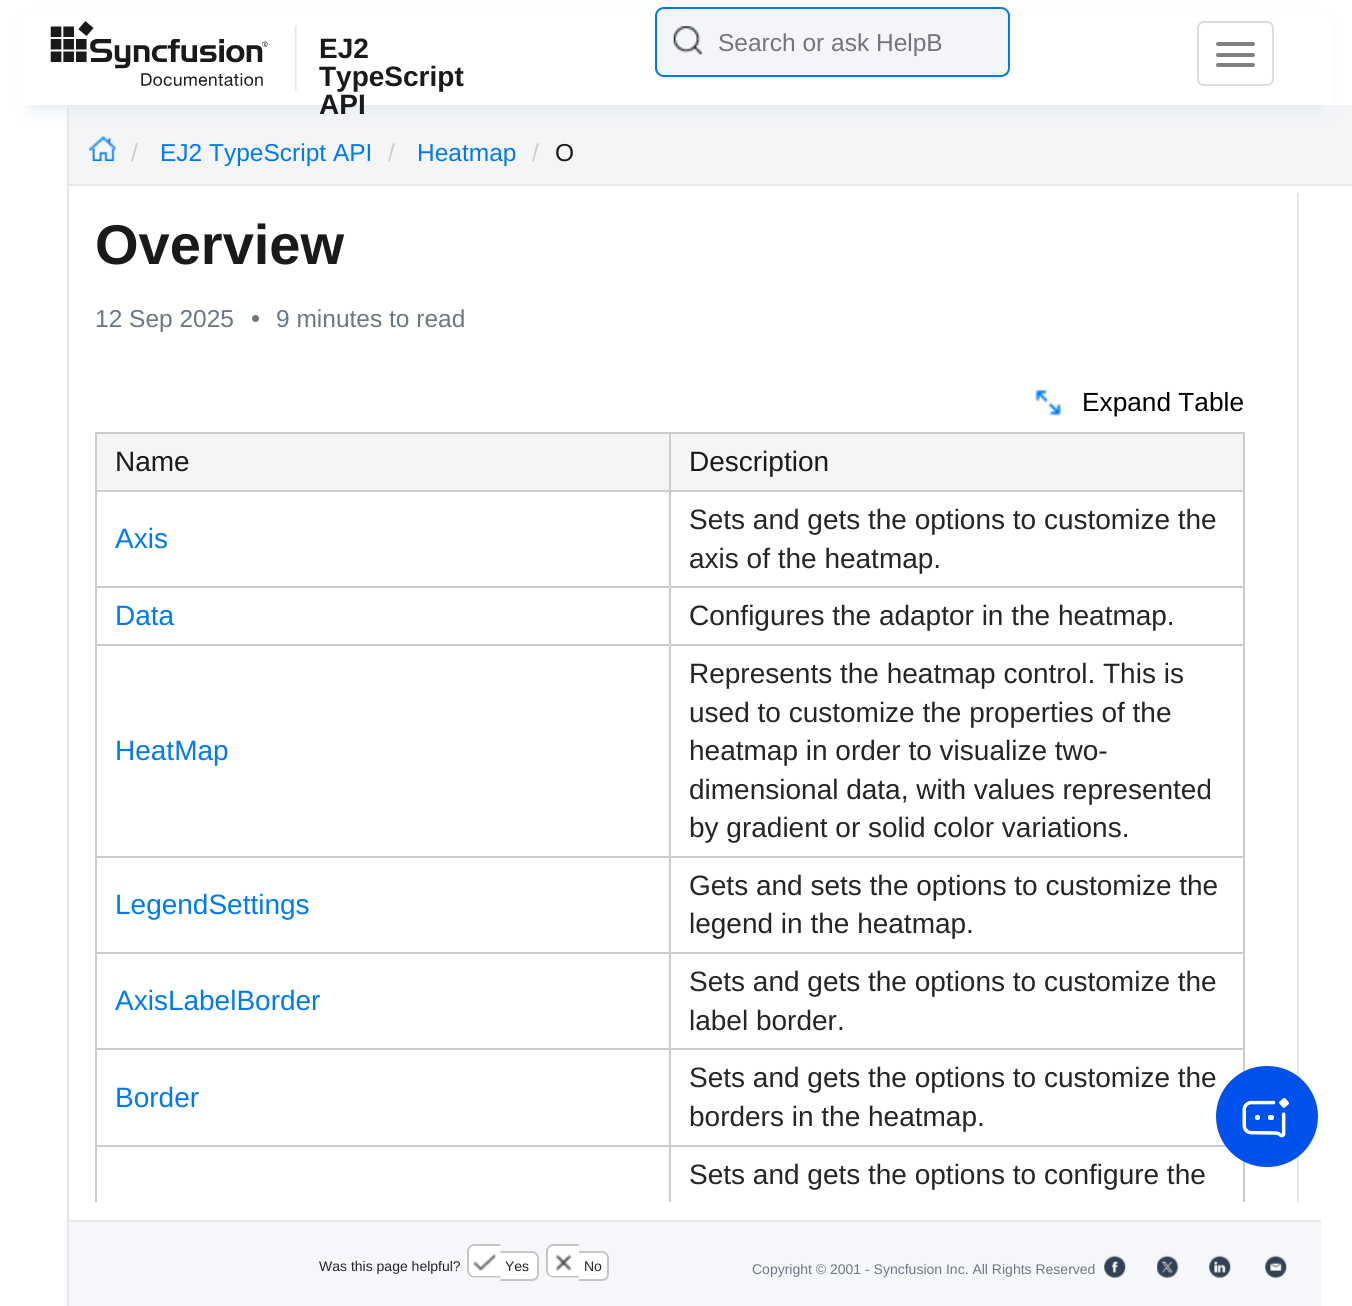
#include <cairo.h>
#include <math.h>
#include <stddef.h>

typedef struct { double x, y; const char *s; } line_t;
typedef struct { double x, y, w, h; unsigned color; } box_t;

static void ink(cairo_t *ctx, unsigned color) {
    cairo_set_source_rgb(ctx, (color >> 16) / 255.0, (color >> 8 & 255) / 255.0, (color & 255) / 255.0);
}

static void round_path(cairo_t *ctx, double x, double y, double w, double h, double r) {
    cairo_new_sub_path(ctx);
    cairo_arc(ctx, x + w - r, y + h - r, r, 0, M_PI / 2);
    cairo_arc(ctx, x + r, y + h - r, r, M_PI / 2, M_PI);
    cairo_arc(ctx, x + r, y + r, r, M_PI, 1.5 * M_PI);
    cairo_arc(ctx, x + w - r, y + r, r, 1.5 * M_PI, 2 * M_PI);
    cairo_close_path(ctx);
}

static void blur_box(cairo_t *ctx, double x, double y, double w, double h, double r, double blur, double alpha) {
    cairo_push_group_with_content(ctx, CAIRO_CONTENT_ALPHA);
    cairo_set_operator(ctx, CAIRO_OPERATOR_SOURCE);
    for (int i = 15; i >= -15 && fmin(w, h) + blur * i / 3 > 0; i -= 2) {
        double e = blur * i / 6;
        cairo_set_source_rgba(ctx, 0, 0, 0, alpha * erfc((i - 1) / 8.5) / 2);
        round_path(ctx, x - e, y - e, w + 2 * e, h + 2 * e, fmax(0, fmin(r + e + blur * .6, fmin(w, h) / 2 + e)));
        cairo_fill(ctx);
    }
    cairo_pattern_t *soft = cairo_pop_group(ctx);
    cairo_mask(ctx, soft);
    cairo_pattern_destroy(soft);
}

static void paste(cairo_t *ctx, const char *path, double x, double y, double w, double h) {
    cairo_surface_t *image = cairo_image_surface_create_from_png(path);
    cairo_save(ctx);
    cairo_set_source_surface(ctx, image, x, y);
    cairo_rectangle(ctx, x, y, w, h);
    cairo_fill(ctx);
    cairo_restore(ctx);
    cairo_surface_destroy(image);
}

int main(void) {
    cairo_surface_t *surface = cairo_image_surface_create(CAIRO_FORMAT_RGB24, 1352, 1306);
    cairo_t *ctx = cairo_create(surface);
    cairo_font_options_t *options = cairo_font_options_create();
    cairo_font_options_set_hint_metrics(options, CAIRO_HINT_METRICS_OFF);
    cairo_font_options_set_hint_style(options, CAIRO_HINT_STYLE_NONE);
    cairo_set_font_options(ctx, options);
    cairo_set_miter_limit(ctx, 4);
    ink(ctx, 0xFFFFFF);
    cairo_paint(ctx);
    ink(ctx, 0xF5F5F7);
    cairo_rectangle(ctx, 69, 105, 1283, 79);
    cairo_fill(ctx);
    paste(ctx, "media/3.png", 88, 136, 28, 25);
    ink(ctx, 0xE7E7E7);
    cairo_rectangle(ctx, 67, 105, 2, 1201);
    cairo_fill(ctx);
    ink(ctx, 0xE2EAF5);
    blur_box(ctx, 32, 25, 1289, 84, 0, 9.5, 1);
    ink(ctx, 0xFFFFFF);
    cairo_rectangle(ctx, 21, 12, 1311, 93);
    cairo_fill(ctx);
    paste(ctx, "media/1.png", 50, 21, 247, 70);
    cairo_select_font_face(ctx, "Liberation Sans", CAIRO_FONT_SLANT_NORMAL, CAIRO_FONT_WEIGHT_BOLD);
    cairo_set_font_size(ctx, 28);
    ink(ctx, 0x1A1A1A);
    {
        static const line_t items[] = {
            {319, 58, "EJ2"},
            {319, 86, "TypeScript"},
            {319, 114, "API"},
        };
        for (size_t i = 0; i < sizeof items / sizeof *items; i++) {
            cairo_move_to(ctx, items[i].x, items[i].y);
            cairo_show_text(ctx, items[i].s);
        }
    }
    ink(ctx, 0xF4F5F8);
    round_path(ctx, 655, 7, 355, 70, 9);
    cairo_fill(ctx);
    paste(ctx, "media/2.png", 673, 26, 29, 29);
    round_path(ctx, 656, 8, 353, 68, 8);
    ink(ctx, 0x0079F3);
    cairo_stroke(ctx);
    cairo_select_font_face(ctx, "Liberation Sans", CAIRO_FONT_SLANT_NORMAL, CAIRO_FONT_WEIGHT_NORMAL);
    cairo_set_font_size(ctx, 24.5);
    ink(ctx, 0x757575);
    cairo_move_to(ctx, 718, 51);
    cairo_show_text(ctx, "Search or ask HelpB");
    round_path(ctx, 1198, 22, 75, 63, 6);
    ink(ctx, 0xDDDDDD);
    cairo_stroke(ctx);
    ink(ctx, 0x808080);
    round_path(ctx, 1216, 42, 39, 4, 2);
    cairo_fill(ctx);
    round_path(ctx, 1216, 53, 39, 4, 2);
    cairo_fill(ctx);
    round_path(ctx, 1216, 63, 39, 4, 2);
    cairo_fill(ctx);
    ink(ctx, 0xE7E7E7);
    cairo_rectangle(ctx, 69, 184, 1283, 2);
    cairo_fill(ctx);
    ink(ctx, 0xCCCCCC);
    cairo_move_to(ctx, 131, 161);
    cairo_show_text(ctx, "/");
    ink(ctx, 0x0079F3);
    cairo_move_to(ctx, 160, 161);
    cairo_show_text(ctx, "EJ2 TypeScript API");
    ink(ctx, 0xCCCCCC);
    cairo_move_to(ctx, 388, 161);
    cairo_show_text(ctx, "/");
    ink(ctx, 0x0079F3);
    cairo_move_to(ctx, 417, 161);
    cairo_show_text(ctx, "Heatmap");
    ink(ctx, 0xCCCCCC);
    cairo_move_to(ctx, 532, 161);
    cairo_show_text(ctx, "/");
    ink(ctx, 0x1A1A1A);
    cairo_move_to(ctx, 555, 161);
    cairo_show_text(ctx, "O");
    ink(ctx, 0xE7E7E7);
    cairo_rectangle(ctx, 1297, 193, 2, 1009);
    cairo_fill(ctx);
    cairo_select_font_face(ctx, "Liberation Sans", CAIRO_FONT_SLANT_NORMAL, CAIRO_FONT_WEIGHT_BOLD);
    cairo_set_font_size(ctx, 56);
    ink(ctx, 0x1A1A1A);
    cairo_move_to(ctx, 95, 264);
    cairo_show_text(ctx, "Overview");
    cairo_select_font_face(ctx, "Liberation Sans", CAIRO_FONT_SLANT_NORMAL, CAIRO_FONT_WEIGHT_NORMAL);
    cairo_set_font_size(ctx, 24.5);
    ink(ctx, 0x6C7786);
    cairo_move_to(ctx, 95, 327);
    cairo_show_text(ctx, "12 Sep 2025");
    cairo_new_path(ctx);
    cairo_arc(ctx, 255.5, 318.5, 3.5, 0, 2 * M_PI);
    cairo_fill(ctx);
    cairo_move_to(ctx, 276, 327);
    cairo_show_text(ctx, "9 minutes to read");
    paste(ctx, "media/4.png", 1035, 389, 26, 27);
    cairo_set_font_size(ctx, 26.25);
    ink(ctx, 0x000000);
    cairo_move_to(ctx, 1082, 411);
    cairo_show_text(ctx, "Expand Table");
    {
        static const box_t items[] = {
            {97, 434, 572, 56, 0xF3F5F7},
            {669, 432, 575, 2, 0xCCCCCC},
            {669, 490, 575, 2, 0xCCCCCC},
            {669, 586, 575, 2, 0xCCCCCC},
            {669, 644, 575, 2, 0xCCCCCC},
            {669, 856, 575, 2, 0xCCCCCC},
            {669, 952, 575, 2, 0xCCCCCC},
            {669, 1048, 575, 2, 0xCCCCCC},
            {669, 1145, 558, 2, 0xCCCCCC},
            {669, 1145, 2, 57, 0xCCCCCC},
            {95, 1145, 575, 2, 0xCCCCCC},
            {669, 1048, 2, 98, 0xCCCCCC},
            {95, 1048, 575, 2, 0xCCCCCC},
            {669, 952, 2, 98, 0xCCCCCC},
            {95, 952, 575, 2, 0xCCCCCC},
            {669, 856, 2, 98, 0xCCCCCC},
            {95, 856, 575, 2, 0xCCCCCC},
            {669, 644, 2, 214, 0xCCCCCC},
            {95, 644, 575, 2, 0xCCCCCC},
            {669, 586, 2, 60, 0xCCCCCC},
            {95, 586, 575, 2, 0xCCCCCC},
            {669, 490, 2, 98, 0xCCCCCC},
            {95, 490, 575, 2, 0xCCCCCC},
            {669, 432, 2, 60, 0xCCCCCC},
            {95, 432, 575, 2, 0xCCCCCC},
            {95, 1145, 2, 57, 0xCCCCCC},
            {95, 1048, 2, 98, 0xCCCCCC},
            {95, 952, 2, 98, 0xCCCCCC},
            {95, 856, 2, 98, 0xCCCCCC},
            {95, 644, 2, 214, 0xCCCCCC},
            {95, 586, 2, 60, 0xCCCCCC},
            {95, 490, 2, 98, 0xCCCCCC},
            {95, 432, 2, 60, 0xCCCCCC},
        };
        for (size_t i = 0; i < sizeof items / sizeof *items; i++) {
            ink(ctx, items[i].color);
            cairo_rectangle(ctx, items[i].x, items[i].y, items[i].w, items[i].h);
            cairo_fill(ctx);
        }
    }
    cairo_set_font_size(ctx, 28);
    ink(ctx, 0x1A1A1A);
    cairo_move_to(ctx, 115, 471);
    cairo_show_text(ctx, "Name");
    {
        static const box_t items[] = {
            {671, 434, 572, 56, 0xF3F5F7},
            {1243, 1048, 2, 24, 0xCCCCCC},
            {1243, 952, 2, 98, 0xCCCCCC},
            {1243, 856, 2, 98, 0xCCCCCC},
            {1243, 644, 2, 214, 0xCCCCCC},
            {1243, 586, 2, 60, 0xCCCCCC},
            {1243, 490, 2, 98, 0xCCCCCC},
            {1243, 432, 2, 60, 0xCCCCCC},
        };
        for (size_t i = 0; i < sizeof items / sizeof *items; i++) {
            ink(ctx, items[i].color);
            cairo_rectangle(ctx, items[i].x, items[i].y, items[i].w, items[i].h);
            cairo_fill(ctx);
        }
    }
    ink(ctx, 0x1A1A1A);
    cairo_move_to(ctx, 689, 471);
    cairo_show_text(ctx, "Description");
    ink(ctx, 0x0079F3);
    cairo_move_to(ctx, 115, 548);
    cairo_show_text(ctx, "Axis");
    ink(ctx, 0x252525);
    cairo_move_to(ctx, 689, 529);
    cairo_show_text(ctx, "Sets and gets the options to customize the");
    cairo_move_to(ctx, 689, 568);
    cairo_show_text(ctx, "axis of the heatmap.");
    ink(ctx, 0x0079F3);
    cairo_move_to(ctx, 115, 625);
    cairo_show_text(ctx, "Data");
    ink(ctx, 0x252525);
    cairo_move_to(ctx, 689, 625);
    cairo_show_text(ctx, "Configures the adaptor in the heatmap.");
    ink(ctx, 0x0079F3);
    cairo_move_to(ctx, 115, 760);
    cairo_show_text(ctx, "HeatMap");
    ink(ctx, 0x252525);
    {
        static const line_t items[] = {
            {689, 683, "Represents the heatmap control. This is"},
            {689, 722, "used to customize the properties of the"},
            {689, 760, "heatmap in order to visualize two-"},
            {689, 799, "dimensional data, with values represented"},
            {689, 837, "by gradient or solid color variations."},
        };
        for (size_t i = 0; i < sizeof items / sizeof *items; i++) {
            cairo_move_to(ctx, items[i].x, items[i].y);
            cairo_show_text(ctx, items[i].s);
        }
    }
    ink(ctx, 0x0079F3);
    cairo_move_to(ctx, 115, 914);
    cairo_show_text(ctx, "LegendSettings");
    ink(ctx, 0x252525);
    cairo_move_to(ctx, 689, 895);
    cairo_show_text(ctx, "Gets and sets the options to customize the");
    cairo_move_to(ctx, 689, 933);
    cairo_show_text(ctx, "legend in the heatmap.");
    ink(ctx, 0x0079F3);
    cairo_move_to(ctx, 115, 1010);
    cairo_show_text(ctx, "AxisLabelBorder");
    ink(ctx, 0x252525);
    cairo_move_to(ctx, 689, 991);
    cairo_show_text(ctx, "Sets and gets the options to customize the");
    cairo_move_to(ctx, 689, 1030);
    cairo_show_text(ctx, "label border.");
    ink(ctx, 0x0079F3);
    cairo_move_to(ctx, 115, 1107);
    cairo_show_text(ctx, "Border");
    ink(ctx, 0x252525);
    cairo_move_to(ctx, 689, 1087);
    cairo_show_text(ctx, "Sets and gets the options to customize the");
    cairo_move_to(ctx, 689, 1126);
    cairo_show_text(ctx, "borders in the heatmap.");
    ink(ctx, 0xCCCCCC);
    cairo_rectangle(ctx, 1243, 1161, 2, 41);
    cairo_fill(ctx);
    ink(ctx, 0x252525);
    cairo_move_to(ctx, 689, 1184);
    cairo_show_text(ctx, "Sets and gets the options to configure the");
    ink(ctx, 0x0050EB);
    round_path(ctx, 1216, 1066, 102, 101, 50.5);
    cairo_fill(ctx);
    paste(ctx, "media/5.png", 1242, 1098, 47, 40);
    ink(ctx, 0xF5F7FA);
    cairo_rectangle(ctx, 69, 1222, 1252, 84);
    cairo_fill(ctx);
    ink(ctx, 0xEAEAEA);
    cairo_rectangle(ctx, 69, 1220, 1252, 2);
    cairo_fill(ctx);
    cairo_set_font_size(ctx, 14);
    ink(ctx, 0x252525);
    cairo_move_to(ctx, 319, 1271);
    cairo_show_text(ctx, "Was this page helpful?");
    ink(ctx, 0xFFFFFF);
    cairo_new_path(ctx);
    cairo_move_to(ctx, 474, 1244);
    cairo_line_to(ctx, 501, 1244);
    cairo_line_to(ctx, 501, 1278);
    cairo_line_to(ctx, 474, 1278);
    cairo_curve_to(ctx, 470, 1278, 467, 1275, 467, 1271);
    cairo_line_to(ctx, 467, 1251);
    cairo_curve_to(ctx, 467, 1247, 470, 1244, 474, 1244);
    cairo_close_path(ctx);
    cairo_fill(ctx);
    ink(ctx, 0xC5C5C5);
    cairo_set_fill_rule(ctx, CAIRO_FILL_RULE_EVEN_ODD);
    cairo_new_path(ctx);
    cairo_move_to(ctx, 474, 1244);
    cairo_line_to(ctx, 500.5, 1244);
    cairo_line_to(ctx, 500.5, 1277.5);
    cairo_line_to(ctx, 474, 1277.5);
    cairo_curve_to(ctx, 470.5, 1277.5, 467, 1274.5, 467, 1270.5);
    cairo_line_to(ctx, 467, 1251);
    cairo_curve_to(ctx, 467, 1247.5, 470.5, 1244, 474, 1244);
    cairo_close_path(ctx);
    cairo_move_to(ctx, 474, 1246);
    cairo_line_to(ctx, 500.5, 1246);
    cairo_line_to(ctx, 500.5, 1276);
    cairo_line_to(ctx, 474, 1276);
    cairo_curve_to(ctx, 471.5, 1276, 469, 1273.5, 469, 1270.5);
    cairo_line_to(ctx, 469, 1251);
    cairo_curve_to(ctx, 469, 1248.5, 471.5, 1246, 474, 1246);
    cairo_close_path(ctx);
    cairo_fill(ctx);
    ink(ctx, 0xFFFFFF);
    cairo_new_path(ctx);
    cairo_move_to(ctx, 501, 1251);
    cairo_line_to(ctx, 532, 1251);
    cairo_curve_to(ctx, 536, 1251, 539, 1254, 539, 1258);
    cairo_line_to(ctx, 539, 1274);
    cairo_curve_to(ctx, 539, 1278, 536, 1281, 532, 1281);
    cairo_line_to(ctx, 501, 1281);
    cairo_close_path(ctx);
    cairo_fill(ctx);
    ink(ctx, 0xC5C5C5);
    cairo_new_path(ctx);
    cairo_move_to(ctx, 500.5, 1251);
    cairo_line_to(ctx, 532, 1251);
    cairo_curve_to(ctx, 536, 1251, 539, 1254.5, 539, 1258);
    cairo_line_to(ctx, 539, 1274);
    cairo_curve_to(ctx, 539, 1278, 536, 1281, 532, 1281);
    cairo_line_to(ctx, 500.5, 1281);
    cairo_close_path(ctx);
    cairo_move_to(ctx, 500.5, 1253);
    cairo_line_to(ctx, 532, 1253);
    cairo_curve_to(ctx, 535, 1253, 537, 1255.5, 537, 1258);
    cairo_line_to(ctx, 537, 1274);
    cairo_curve_to(ctx, 537, 1277, 535, 1279, 532, 1279);
    cairo_line_to(ctx, 500.5, 1279);
    cairo_close_path(ctx);
    cairo_fill(ctx);
    paste(ctx, "media/6.png", 474, 1253, 22, 18);
    ink(ctx, 0x252525);
    cairo_move_to(ctx, 505, 1271);
    cairo_show_text(ctx, "Yes");
    ink(ctx, 0xFFFFFF);
    cairo_new_path(ctx);
    cairo_move_to(ctx, 553, 1244);
    cairo_line_to(ctx, 579, 1244);
    cairo_line_to(ctx, 579, 1278);
    cairo_line_to(ctx, 553, 1278);
    cairo_curve_to(ctx, 549, 1278, 546, 1275, 546, 1271);
    cairo_line_to(ctx, 546, 1251);
    cairo_curve_to(ctx, 546, 1247, 549, 1244, 553, 1244);
    cairo_close_path(ctx);
    cairo_fill(ctx);
    ink(ctx, 0xC5C5C5);
    cairo_new_path(ctx);
    cairo_move_to(ctx, 553, 1244);
    cairo_line_to(ctx, 579, 1244);
    cairo_line_to(ctx, 579, 1277.5);
    cairo_line_to(ctx, 553, 1277.5);
    cairo_curve_to(ctx, 549, 1277.5, 546, 1274.5, 546, 1270.5);
    cairo_line_to(ctx, 546, 1251);
    cairo_curve_to(ctx, 546, 1247.5, 549, 1244, 553, 1244);
    cairo_close_path(ctx);
    cairo_move_to(ctx, 553, 1246);
    cairo_line_to(ctx, 579, 1246);
    cairo_line_to(ctx, 579, 1276);
    cairo_line_to(ctx, 553, 1276);
    cairo_curve_to(ctx, 550, 1276, 548, 1273.5, 548, 1270.5);
    cairo_line_to(ctx, 548, 1251);
    cairo_curve_to(ctx, 548, 1248.5, 550, 1246, 553, 1246);
    cairo_close_path(ctx);
    cairo_fill(ctx);
    ink(ctx, 0xFFFFFF);
    cairo_new_path(ctx);
    cairo_move_to(ctx, 579, 1251);
    cairo_line_to(ctx, 602, 1251);
    cairo_curve_to(ctx, 606, 1251, 609, 1254, 609, 1258);
    cairo_line_to(ctx, 609, 1274);
    cairo_curve_to(ctx, 609, 1278, 606, 1281, 602, 1281);
    cairo_line_to(ctx, 579, 1281);
    cairo_close_path(ctx);
    cairo_fill(ctx);
    ink(ctx, 0xC5C5C5);
    cairo_new_path(ctx);
    cairo_move_to(ctx, 579, 1251);
    cairo_line_to(ctx, 602, 1251);
    cairo_curve_to(ctx, 606, 1251, 609, 1254.5, 609, 1258);
    cairo_line_to(ctx, 609, 1274);
    cairo_curve_to(ctx, 609, 1278, 606, 1281, 602, 1281);
    cairo_line_to(ctx, 579, 1281);
    cairo_close_path(ctx);
    cairo_move_to(ctx, 579, 1253);
    cairo_line_to(ctx, 602, 1253);
    cairo_curve_to(ctx, 605, 1253, 607, 1255.5, 607, 1258);
    cairo_line_to(ctx, 607, 1274);
    cairo_curve_to(ctx, 607, 1277, 605, 1279, 602, 1279);
    cairo_line_to(ctx, 579, 1279);
    cairo_close_path(ctx);
    cairo_fill(ctx);
    paste(ctx, "media/7.png", 555, 1254, 17, 17);
    ink(ctx, 0x252525);
    cairo_move_to(ctx, 584, 1271);
    cairo_show_text(ctx, "No");
    ink(ctx, 0x6C7786);
    cairo_move_to(ctx, 752, 1274);
    cairo_show_text(ctx, "Copyright © 2001 - Syncfusion Inc. All Rights Reserved");
    paste(ctx, "media/8.png", 1104, 1255, 22, 23);
    paste(ctx, "media/9.png", 1157, 1255, 22, 23);
    paste(ctx, "media/10.png", 1209, 1255, 22, 23);
    paste(ctx, "media/11.png", 1265, 1255, 22, 23);
    cairo_surface_write_to_png(surface, "image.png");
    cairo_font_options_destroy(options);
    cairo_destroy(ctx);
    cairo_surface_destroy(surface);
    return 0;
}
